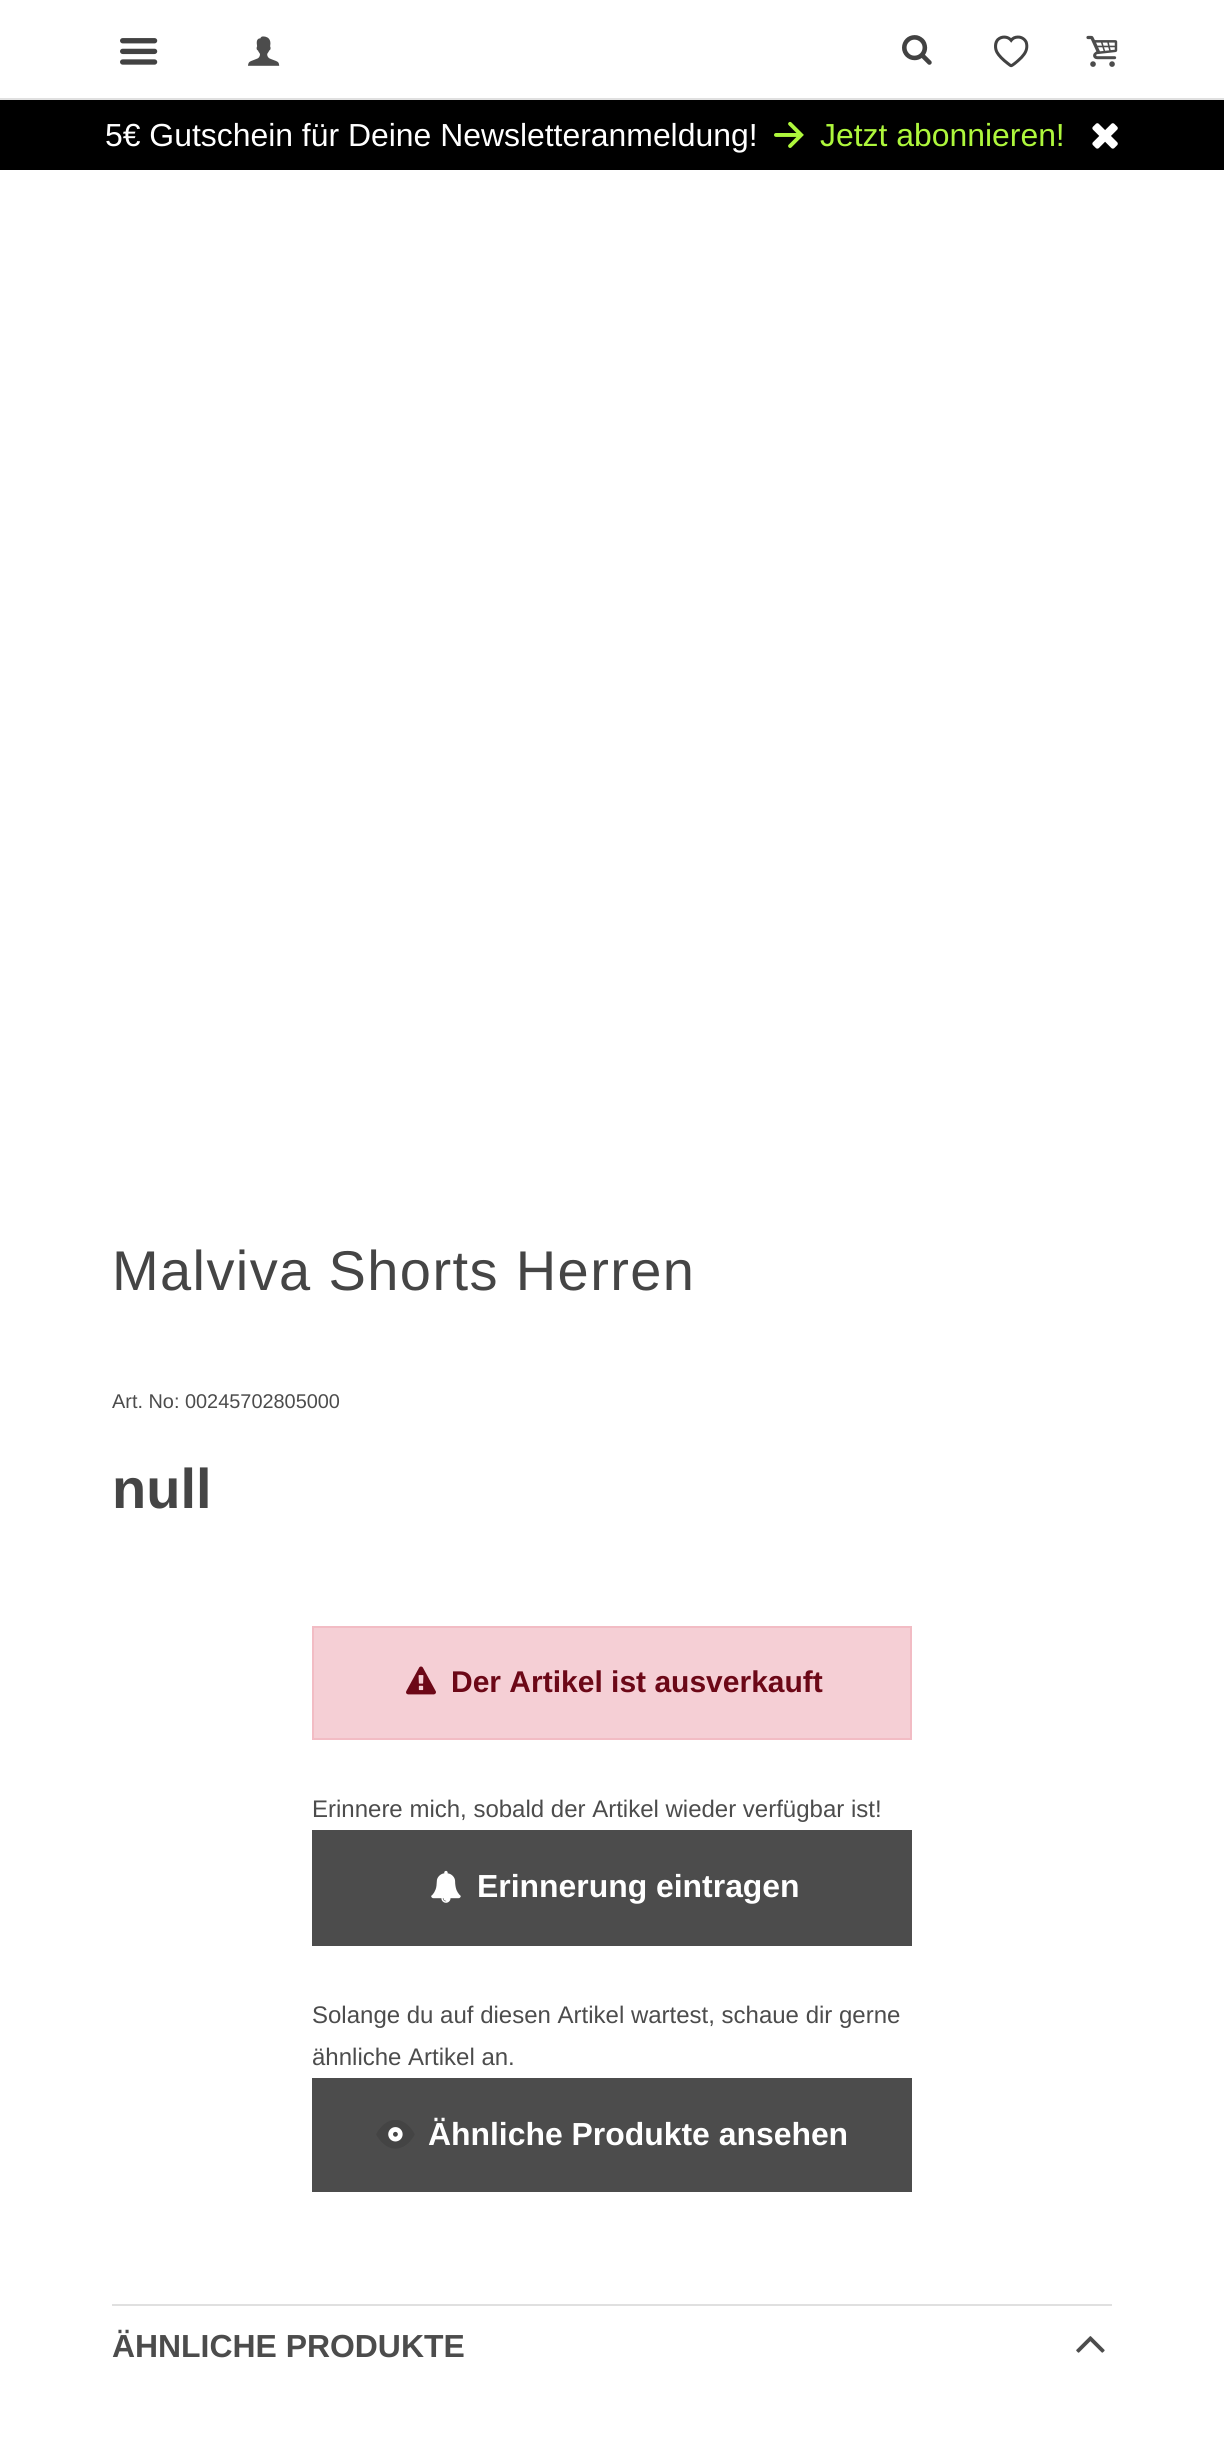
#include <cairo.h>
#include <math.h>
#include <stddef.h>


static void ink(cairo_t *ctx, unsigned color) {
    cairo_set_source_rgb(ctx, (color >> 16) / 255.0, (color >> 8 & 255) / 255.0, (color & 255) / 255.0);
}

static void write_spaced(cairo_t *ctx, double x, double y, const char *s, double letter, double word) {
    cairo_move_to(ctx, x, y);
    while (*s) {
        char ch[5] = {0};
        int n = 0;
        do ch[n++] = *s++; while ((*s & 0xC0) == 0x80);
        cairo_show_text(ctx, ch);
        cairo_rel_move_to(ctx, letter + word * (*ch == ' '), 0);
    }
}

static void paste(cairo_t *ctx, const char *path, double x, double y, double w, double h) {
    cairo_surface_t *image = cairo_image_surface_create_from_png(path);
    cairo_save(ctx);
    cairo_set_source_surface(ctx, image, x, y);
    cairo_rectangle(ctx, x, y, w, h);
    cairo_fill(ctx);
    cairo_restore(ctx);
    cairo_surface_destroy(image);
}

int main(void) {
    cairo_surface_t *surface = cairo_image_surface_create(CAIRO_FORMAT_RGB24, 1224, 2454);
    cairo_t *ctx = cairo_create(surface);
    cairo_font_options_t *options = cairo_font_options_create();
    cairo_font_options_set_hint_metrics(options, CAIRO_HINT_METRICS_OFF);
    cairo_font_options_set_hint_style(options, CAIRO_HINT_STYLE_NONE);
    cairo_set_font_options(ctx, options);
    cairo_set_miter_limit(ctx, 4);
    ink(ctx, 0xFFFFFF);
    cairo_paint(ctx);
    ink(ctx, 0xE0E0E0);
    cairo_rectangle(ctx, 0, 98, 1224, 2);
    cairo_fill(ctx);
    paste(ctx, "media/1.png", 120, 38, 38, 27);
    paste(ctx, "media/2.png", 248, 36, 32, 30);
    paste(ctx, "media/3.png", 902, 35, 30, 30);
    paste(ctx, "media/4.png", 994, 35, 35, 33);
    paste(ctx, "media/5.png", 1086, 35, 32, 32);
    ink(ctx, 0x000000);
    cairo_rectangle(ctx, 0, 100, 1224, 70);
    cairo_fill(ctx);
    cairo_select_font_face(ctx, "Liberation Sans", CAIRO_FONT_SLANT_NORMAL, CAIRO_FONT_WEIGHT_NORMAL);
    cairo_set_font_size(ctx, 31.9);
    ink(ctx, 0xFFFFFF);
    cairo_move_to(ctx, 105, 146);
    cairo_show_text(ctx, "5€ Gutschein für Deine Newsletteranmeldung!");
    paste(ctx, "media/6.png", 774, 121, 30, 27);
    ink(ctx, 0xAEF73C);
    cairo_move_to(ctx, 820, 146);
    cairo_show_text(ctx, "Jetzt abonnieren!");
    paste(ctx, "media/7.png", 1092, 123, 26, 26);
    cairo_set_font_size(ctx, 56);
    ink(ctx, 0x454545);
    write_spaced(ctx, 112, 1290, "Malviva Shorts Herren", 1.4, 0);
    cairo_set_font_size(ctx, 19.9);
    ink(ctx, 0x4C4C4C);
    cairo_move_to(ctx, 112, 1408);
    cairo_show_text(ctx, "Art. No: 00245702805000");
    cairo_select_font_face(ctx, "Liberation Sans", CAIRO_FONT_SLANT_NORMAL, CAIRO_FONT_WEIGHT_BOLD);
    cairo_set_font_size(ctx, 56);
    ink(ctx, 0x454545);
    cairo_move_to(ctx, 112, 1508);
    cairo_show_text(ctx, "null");
    ink(ctx, 0xF5CFD5);
    cairo_rectangle(ctx, 313, 1627, 598, 112);
    cairo_fill_preserve(ctx);
    ink(ctx, 0xF2BCC4);
    cairo_stroke(ctx);
    paste(ctx, "media/8.png", 406, 1666, 30, 29);
    cairo_set_font_size(ctx, 30);
    ink(ctx, 0x6C0817);
    cairo_move_to(ctx, 451, 1692);
    cairo_show_text(ctx, "Der Artikel ist ausverkauft");
    cairo_select_font_face(ctx, "Liberation Sans", CAIRO_FONT_SLANT_NORMAL, CAIRO_FONT_WEIGHT_NORMAL);
    cairo_set_font_size(ctx, 24);
    ink(ctx, 0x4C4C4C);
    cairo_move_to(ctx, 312, 1817);
    cairo_show_text(ctx, "Erinnere mich, sobald der Artikel wieder verfügbar ist!");
    cairo_rectangle(ctx, 312, 1830, 600, 116);
    cairo_fill(ctx);
    paste(ctx, "media/9.png", 431, 1870, 30, 33);
    cairo_select_font_face(ctx, "Liberation Sans", CAIRO_FONT_SLANT_NORMAL, CAIRO_FONT_WEIGHT_BOLD);
    cairo_set_font_size(ctx, 31.9);
    ink(ctx, 0xFFFFFF);
    cairo_move_to(ctx, 477, 1897);
    cairo_show_text(ctx, "Erinnerung eintragen");
    cairo_select_font_face(ctx, "Liberation Sans", CAIRO_FONT_SLANT_NORMAL, CAIRO_FONT_WEIGHT_NORMAL);
    cairo_set_font_size(ctx, 24);
    ink(ctx, 0x4C4C4C);
    cairo_move_to(ctx, 312, 2023);
    cairo_show_text(ctx, "Solange du auf diesen Artikel wartest, schaue dir gerne");
    cairo_move_to(ctx, 312, 2065);
    cairo_show_text(ctx, "ähnliche Artikel an.");
    cairo_rectangle(ctx, 312, 2078, 600, 114);
    cairo_fill(ctx);
    paste(ctx, "media/10.png", 376, 2120, 39, 29);
    cairo_select_font_face(ctx, "Liberation Sans", CAIRO_FONT_SLANT_NORMAL, CAIRO_FONT_WEIGHT_BOLD);
    cairo_set_font_size(ctx, 31.9);
    ink(ctx, 0xFFFFFF);
    cairo_move_to(ctx, 428, 2145);
    cairo_show_text(ctx, "Ähnliche Produkte ansehen");
    ink(ctx, 0xE0E0E0);
    cairo_rectangle(ctx, 112, 2304, 1000, 2);
    cairo_fill(ctx);
    ink(ctx, 0x4C4C4C);
    cairo_move_to(ctx, 112, 2357);
    cairo_show_text(ctx, "ÄHNLICHE PRODUKTE");
    paste(ctx, "media/11.png", 1076, 2336, 29, 17);
    cairo_surface_write_to_png(surface, "image.png");
    cairo_font_options_destroy(options);
    cairo_destroy(ctx);
    cairo_surface_destroy(surface);
    return 0;
}
